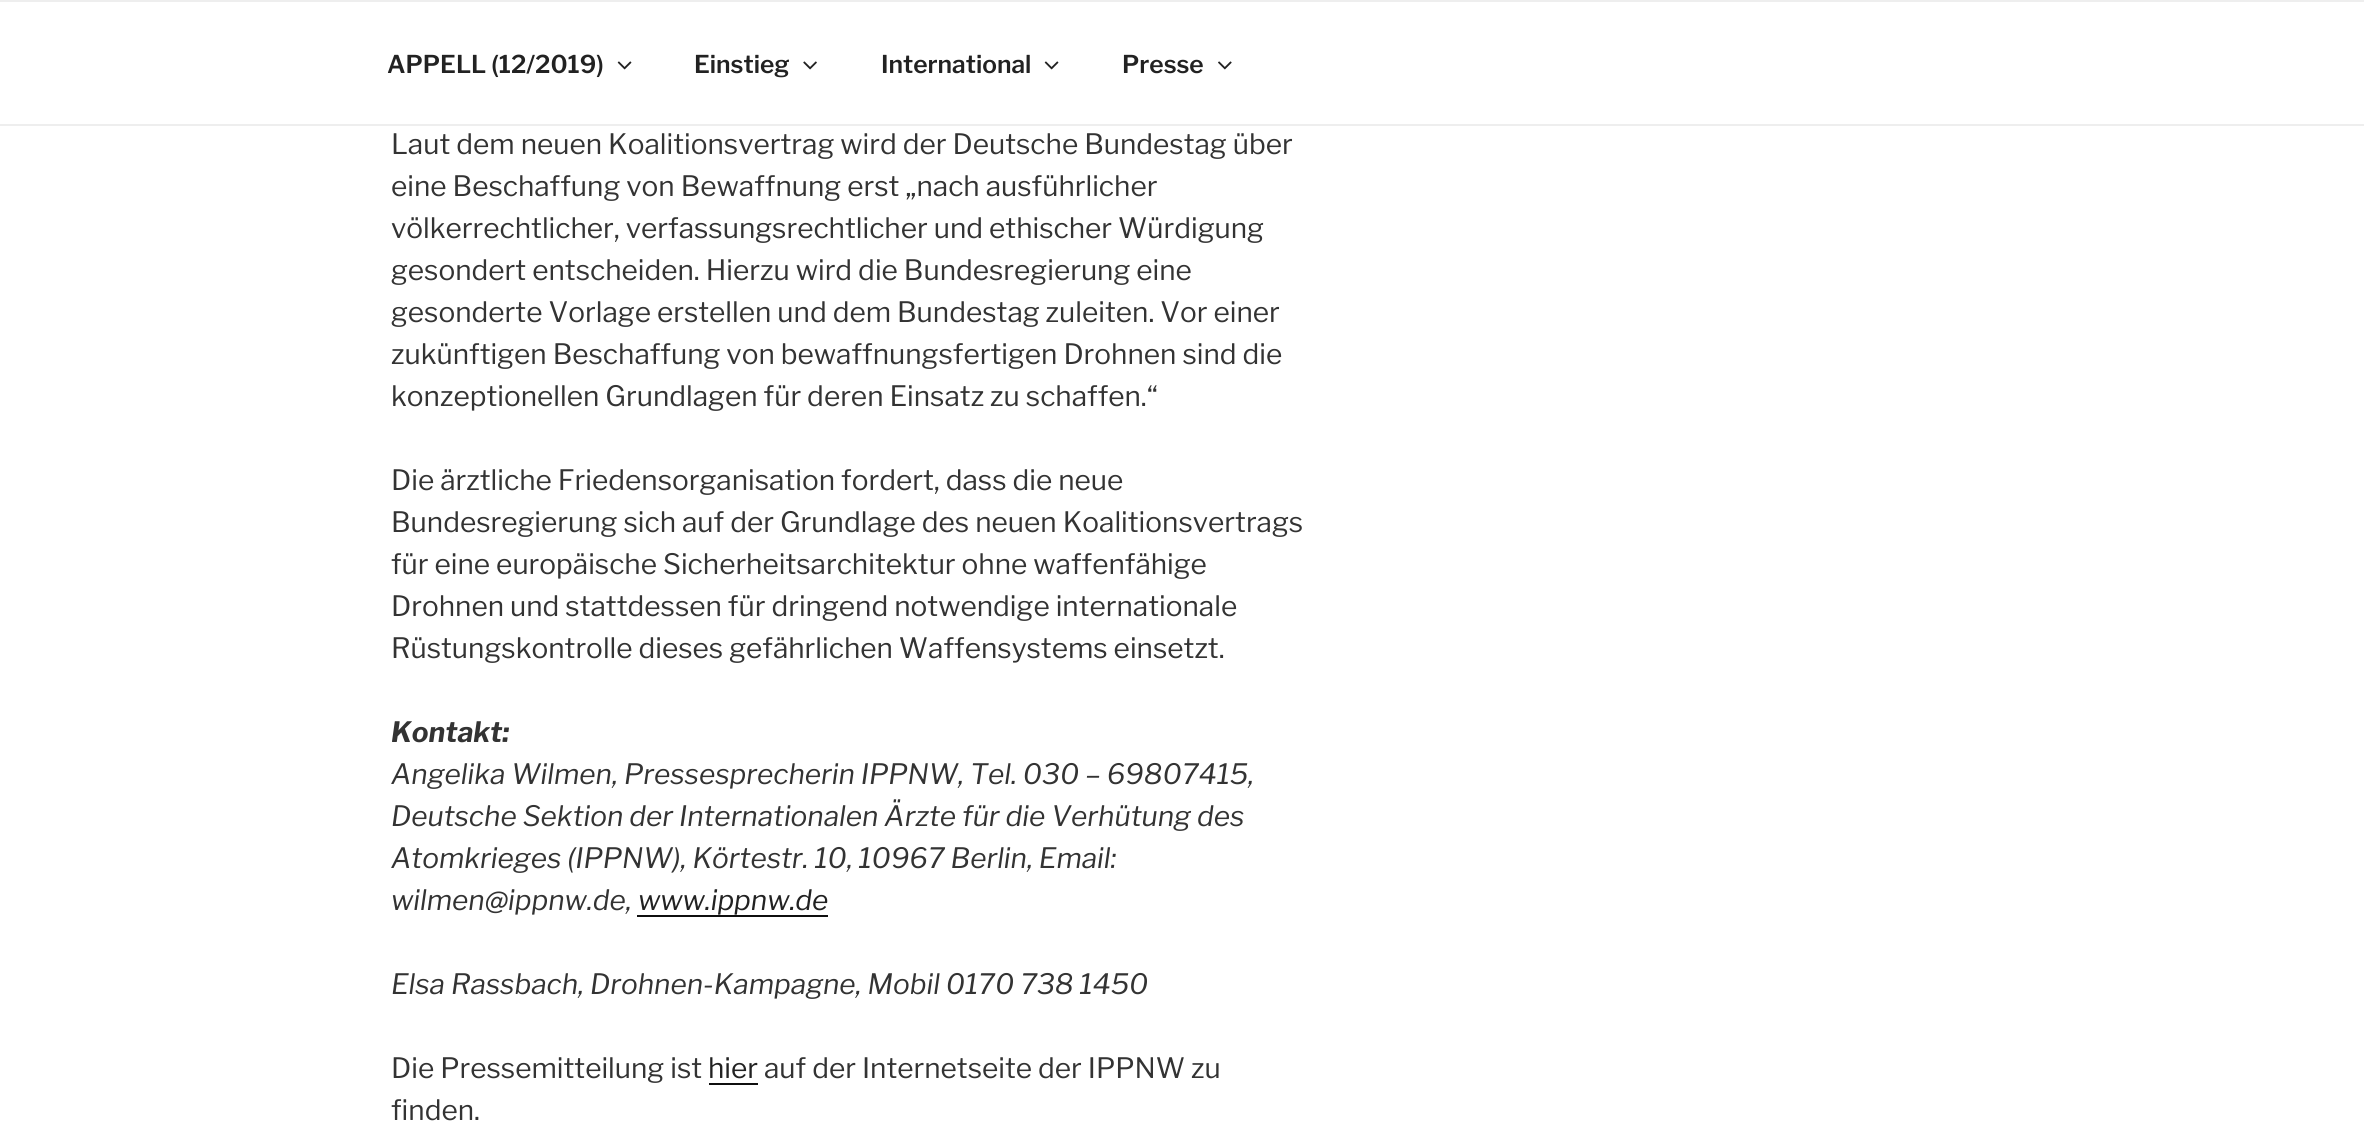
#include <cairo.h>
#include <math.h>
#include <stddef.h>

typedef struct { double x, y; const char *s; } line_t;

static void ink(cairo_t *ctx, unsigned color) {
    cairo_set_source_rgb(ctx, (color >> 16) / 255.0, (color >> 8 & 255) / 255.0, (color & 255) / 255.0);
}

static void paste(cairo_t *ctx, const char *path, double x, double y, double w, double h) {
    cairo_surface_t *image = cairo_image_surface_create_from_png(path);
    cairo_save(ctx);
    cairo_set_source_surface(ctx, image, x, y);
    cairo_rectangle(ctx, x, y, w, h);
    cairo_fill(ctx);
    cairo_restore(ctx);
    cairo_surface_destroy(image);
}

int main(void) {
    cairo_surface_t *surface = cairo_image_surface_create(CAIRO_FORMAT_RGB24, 2364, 1148);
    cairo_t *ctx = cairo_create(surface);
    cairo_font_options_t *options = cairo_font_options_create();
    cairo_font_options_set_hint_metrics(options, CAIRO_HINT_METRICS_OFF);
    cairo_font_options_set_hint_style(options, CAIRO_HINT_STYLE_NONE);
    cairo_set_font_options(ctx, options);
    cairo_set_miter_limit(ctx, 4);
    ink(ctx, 0xFFFFFF);
    cairo_paint(ctx);
    ink(ctx, 0xEEEEEE);
    cairo_rectangle(ctx, 0, 0, 2364, 2);
    cairo_fill(ctx);
    cairo_rectangle(ctx, 0, 124, 2364, 2);
    cairo_fill(ctx);
    cairo_select_font_face(ctx, "Libre Franklin SemiBold", CAIRO_FONT_SLANT_NORMAL, CAIRO_FONT_WEIGHT_NORMAL);
    cairo_set_font_size(ctx, 24.5);
    ink(ctx, 0x222222);
    cairo_move_to(ctx, 387, 73);
    cairo_show_text(ctx, "APPELL (12/2019)");
    paste(ctx, "media/1.png", 617, 61, 15, 9);
    cairo_move_to(ctx, 694, 73);
    cairo_show_text(ctx, "Einstieg");
    paste(ctx, "media/2.png", 803, 61, 14, 9);
    cairo_move_to(ctx, 881, 73);
    cairo_show_text(ctx, "International");
    paste(ctx, "media/1.png", 1044, 61, 15, 9);
    cairo_move_to(ctx, 1122, 73);
    cairo_show_text(ctx, "Presse");
    paste(ctx, "media/3.png", 1218, 61, 14, 9);
    cairo_select_font_face(ctx, "Libre Franklin", CAIRO_FONT_SLANT_NORMAL, CAIRO_FONT_WEIGHT_NORMAL);
    cairo_set_font_size(ctx, 28);
    ink(ctx, 0x333333);
    {
        static const line_t items[] = {
            {391, 154, "Laut dem neuen Koalitionsvertrag wird der Deutsche Bundestag über"},
            {391, 196, "eine Beschaffung von Bewaffnung erst „nach ausführlicher"},
            {391, 238, "völkerrechtlicher, verfassungsrechtlicher und ethischer Würdigung"},
            {391, 280, "gesondert entscheiden. Hierzu wird die Bundesregierung eine"},
            {391, 322, "gesonderte Vorlage erstellen und dem Bundestag zuleiten. Vor einer"},
            {391, 364, "zukünftigen Beschaffung von bewaffnungsfertigen Drohnen sind die"},
            {391, 406, "konzeptionellen Grundlagen für deren Einsatz zu schaffen.“"},
            {391, 490, "Die ärztliche Friedensorganisation fordert, dass die neue"},
            {391, 532, "Bundesregierung sich auf der Grundlage des neuen Koalitionsvertrags"},
            {391, 574, "für eine europäische Sicherheitsarchitektur ohne waffenfähige"},
            {391, 616, "Drohnen und stattdessen für dringend notwendige internationale"},
            {391, 658, "Rüstungskontrolle dieses gefährlichen Waffensystems einsetzt."},
        };
        for (size_t i = 0; i < sizeof items / sizeof *items; i++) {
            cairo_move_to(ctx, items[i].x, items[i].y);
            cairo_show_text(ctx, items[i].s);
        }
    }
    cairo_select_font_face(ctx, "Libre Franklin", CAIRO_FONT_SLANT_ITALIC, CAIRO_FONT_WEIGHT_BOLD);
    cairo_move_to(ctx, 391, 742);
    cairo_show_text(ctx, "Kontakt:");
    cairo_select_font_face(ctx, "Libre Franklin", CAIRO_FONT_SLANT_ITALIC, CAIRO_FONT_WEIGHT_NORMAL);
    {
        static const line_t items[] = {
            {391, 784, "Angelika Wilmen, Pressesprecherin IPPNW, Tel. 030 – 69807415,"},
            {391, 826, "Deutsche Sektion der Internationalen Ärzte für die Verhütung des"},
            {391, 868, "Atomkrieges (IPPNW), Körtestr. 10, 10967 Berlin, Email:"},
            {391, 910, "wilmen@ippnw.de,"},
        };
        for (size_t i = 0; i < sizeof items / sizeof *items; i++) {
            cairo_move_to(ctx, items[i].x, items[i].y);
            cairo_show_text(ctx, items[i].s);
        }
    }
    ink(ctx, 0x222222);
    cairo_move_to(ctx, 638, 910);
    cairo_show_text(ctx, "www.ippnw.de");
    ink(ctx, 0x0F0F0F);
    cairo_rectangle(ctx, 637, 915, 191, 2);
    cairo_fill(ctx);
    ink(ctx, 0x333333);
    cairo_move_to(ctx, 391, 994);
    cairo_show_text(ctx, "Elsa Rassbach, Drohnen-Kampagne, Mobil 0170 738 1450");
    cairo_select_font_face(ctx, "Libre Franklin", CAIRO_FONT_SLANT_NORMAL, CAIRO_FONT_WEIGHT_NORMAL);
    cairo_move_to(ctx, 391, 1078);
    cairo_show_text(ctx, "Die Pressemitteilung ist");
    ink(ctx, 0x222222);
    cairo_move_to(ctx, 708, 1078);
    cairo_show_text(ctx, "hier");
    ink(ctx, 0x0F0F0F);
    cairo_rectangle(ctx, 709, 1083, 49, 2);
    cairo_fill(ctx);
    ink(ctx, 0x333333);
    cairo_move_to(ctx, 764, 1078);
    cairo_show_text(ctx, "auf der Internetseite der IPPNW zu");
    cairo_move_to(ctx, 391, 1120);
    cairo_show_text(ctx, "finden.");
    cairo_surface_write_to_png(surface, "image.png");
    cairo_font_options_destroy(options);
    cairo_destroy(ctx);
    cairo_surface_destroy(surface);
    return 0;
}
